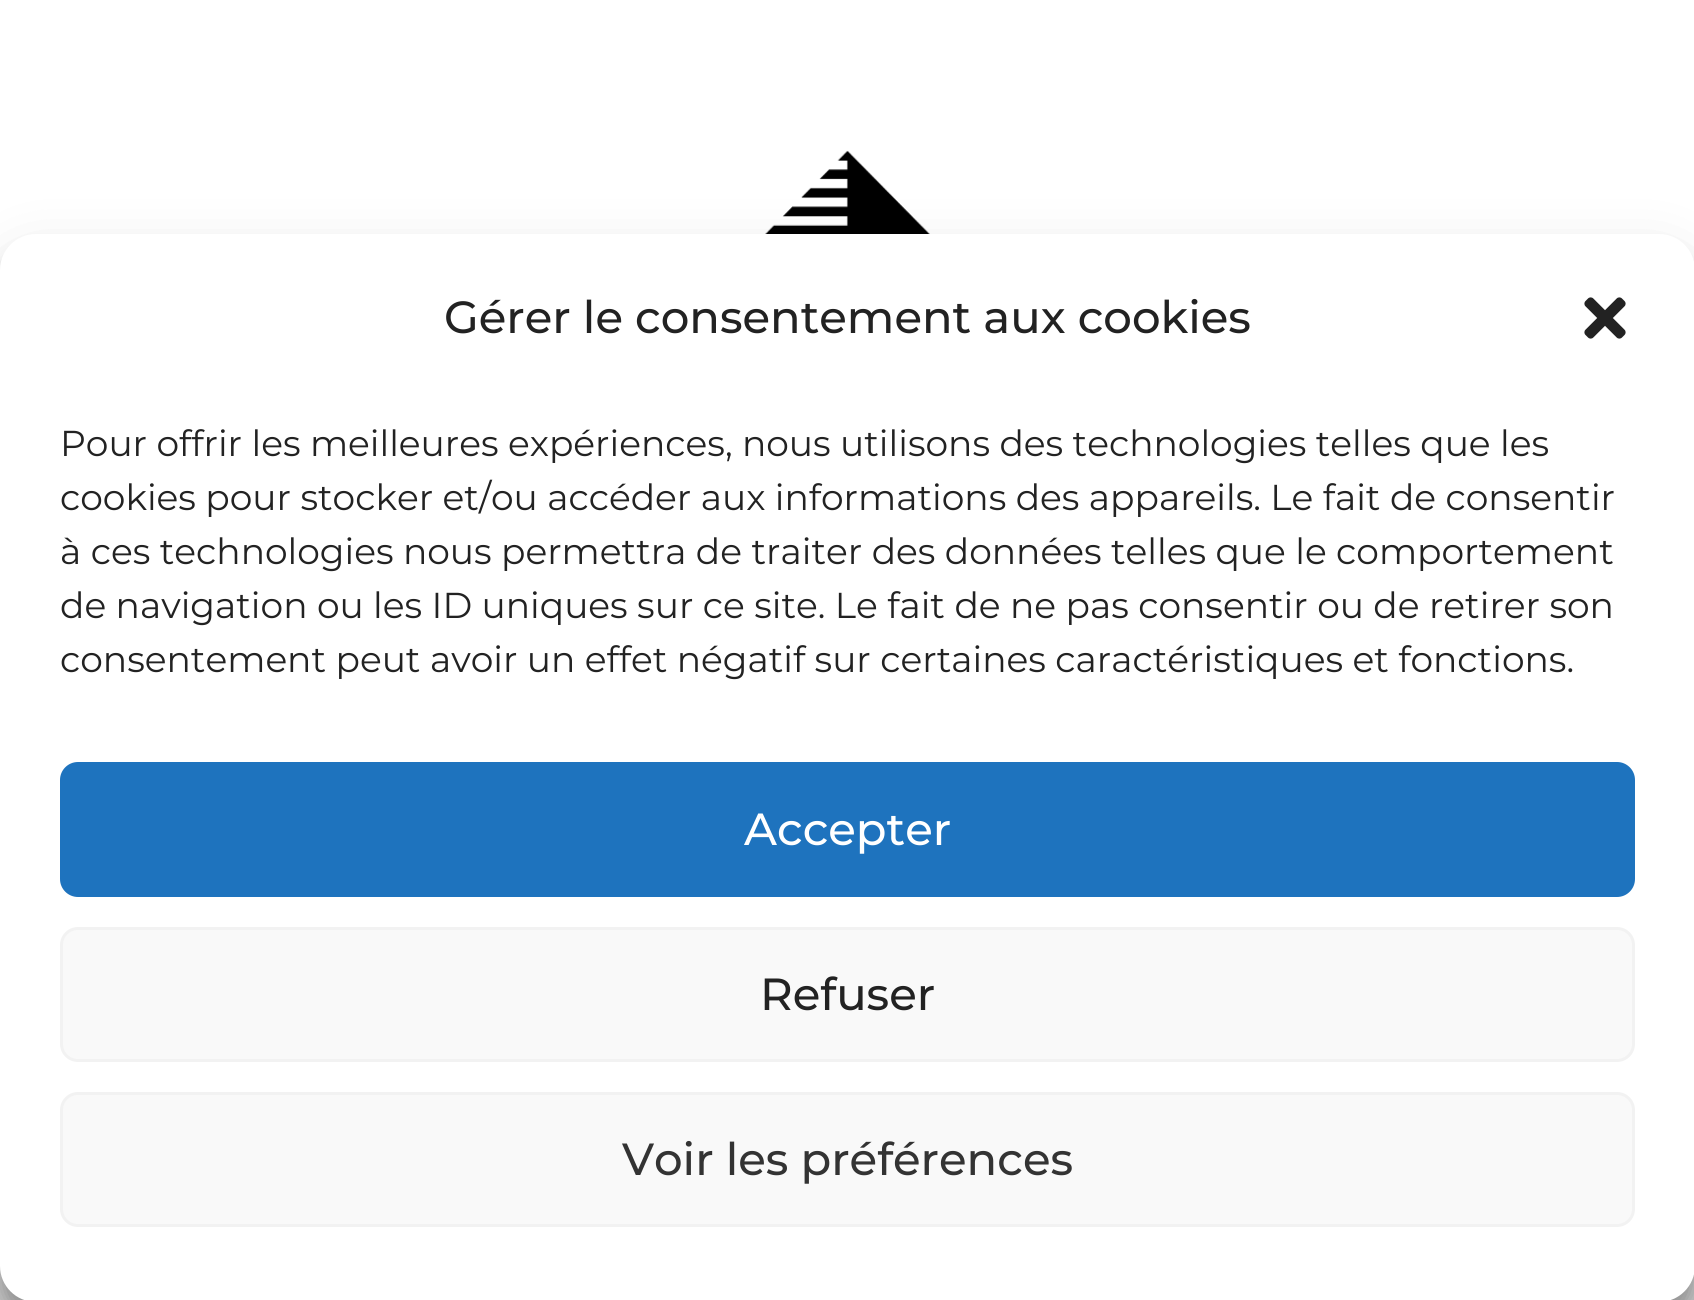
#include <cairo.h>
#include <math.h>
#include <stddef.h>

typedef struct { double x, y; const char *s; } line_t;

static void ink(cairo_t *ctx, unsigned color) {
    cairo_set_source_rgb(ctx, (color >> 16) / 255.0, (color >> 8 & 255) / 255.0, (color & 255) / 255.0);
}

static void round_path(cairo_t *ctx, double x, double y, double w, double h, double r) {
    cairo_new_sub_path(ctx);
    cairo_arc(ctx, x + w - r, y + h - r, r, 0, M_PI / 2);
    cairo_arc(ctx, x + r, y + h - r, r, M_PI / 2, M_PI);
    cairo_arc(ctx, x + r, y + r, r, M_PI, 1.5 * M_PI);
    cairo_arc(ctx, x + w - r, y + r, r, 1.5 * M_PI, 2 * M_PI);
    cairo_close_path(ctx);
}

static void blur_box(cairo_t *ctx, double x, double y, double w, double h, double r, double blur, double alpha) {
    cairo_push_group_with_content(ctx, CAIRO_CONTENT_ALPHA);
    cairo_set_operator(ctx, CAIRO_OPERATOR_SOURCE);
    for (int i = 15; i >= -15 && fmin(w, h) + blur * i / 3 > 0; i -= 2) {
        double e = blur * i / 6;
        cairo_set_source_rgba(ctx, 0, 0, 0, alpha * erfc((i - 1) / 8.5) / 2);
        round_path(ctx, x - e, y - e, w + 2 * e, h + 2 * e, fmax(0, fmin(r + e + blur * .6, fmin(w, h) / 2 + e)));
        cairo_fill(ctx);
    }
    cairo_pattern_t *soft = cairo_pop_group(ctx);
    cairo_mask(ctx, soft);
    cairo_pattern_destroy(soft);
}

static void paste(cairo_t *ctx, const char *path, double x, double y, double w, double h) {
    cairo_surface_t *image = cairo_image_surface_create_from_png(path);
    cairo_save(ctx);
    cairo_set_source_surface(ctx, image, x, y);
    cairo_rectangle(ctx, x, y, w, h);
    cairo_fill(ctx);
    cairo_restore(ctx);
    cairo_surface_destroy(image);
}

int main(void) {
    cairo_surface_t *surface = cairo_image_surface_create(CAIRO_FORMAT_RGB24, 1694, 1300);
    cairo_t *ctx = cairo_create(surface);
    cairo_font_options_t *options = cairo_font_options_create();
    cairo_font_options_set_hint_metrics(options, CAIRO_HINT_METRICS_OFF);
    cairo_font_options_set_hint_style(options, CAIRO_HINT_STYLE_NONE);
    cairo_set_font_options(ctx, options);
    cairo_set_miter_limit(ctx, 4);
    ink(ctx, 0xDBDBDB);
    cairo_paint(ctx);
    ink(ctx, 0xFFFFFF);
    cairo_rectangle(ctx, 0, 0, 1694, 270);
    cairo_fill(ctx);
    paste(ctx, "media/1.png", 765, 150, 165, 84);
    ink(ctx, 0x000000);
    blur_box(ctx, 0, 252, 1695, 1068, 36, 9, 0.23);
    blur_box(ctx, 0, 264, 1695, 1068, 36, 30, 0.19);
    ink(ctx, 0xFFFFFF);
    round_path(ctx, 0, 234, 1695, 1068, 36);
    cairo_fill(ctx);
    cairo_select_font_face(ctx, "Montserrat Medium", CAIRO_FONT_SLANT_NORMAL, CAIRO_FONT_WEIGHT_NORMAL);
    cairo_set_font_size(ctx, 45);
    ink(ctx, 0x222222);
    cairo_move_to(ctx, 444, 333);
    cairo_show_text(ctx, "Gérer le consentement aux cookies");
    paste(ctx, "media/2.png", 1584, 297, 42, 42);
    cairo_select_font_face(ctx, "Montserrat", CAIRO_FONT_SLANT_NORMAL, CAIRO_FONT_WEIGHT_NORMAL);
    cairo_set_font_size(ctx, 36);
    {
        static const line_t items[] = {
            {60, 456, "Pour offrir les meilleures expériences, nous utilisons des technologies telles que les"},
            {60, 510, "cookies pour stocker et/ou accéder aux informations des appareils. Le fait de consentir"},
            {60, 564, "à ces technologies nous permettra de traiter des données telles que le comportement"},
            {60, 618, "de navigation ou les ID uniques sur ce site. Le fait de ne pas consentir ou de retirer son"},
            {60, 672, "consentement peut avoir un effet négatif sur certaines caractéristiques et fonctions."},
        };
        for (size_t i = 0; i < sizeof items / sizeof *items; i++) {
            cairo_move_to(ctx, items[i].x, items[i].y);
            cairo_show_text(ctx, items[i].s);
        }
    }
    ink(ctx, 0x1E73BE);
    round_path(ctx, 61.5, 763.5, 1572, 132, 16.5);
    cairo_fill_preserve(ctx);
    cairo_set_line_width(ctx, 3);
    cairo_stroke(ctx);
    cairo_select_font_face(ctx, "Montserrat Medium", CAIRO_FONT_SLANT_NORMAL, CAIRO_FONT_WEIGHT_NORMAL);
    cairo_set_font_size(ctx, 45);
    ink(ctx, 0xFFFFFF);
    cairo_move_to(ctx, 744, 845);
    cairo_show_text(ctx, "Accepter");
    ink(ctx, 0xF9F9F9);
    round_path(ctx, 61.5, 928.5, 1572, 132, 16.5);
    cairo_fill_preserve(ctx);
    ink(ctx, 0xF2F2F2);
    cairo_stroke(ctx);
    ink(ctx, 0x222222);
    cairo_move_to(ctx, 760, 1010);
    cairo_show_text(ctx, "Refuser");
    ink(ctx, 0xF9F9F9);
    round_path(ctx, 61.5, 1093.5, 1572, 132, 16.5);
    cairo_fill_preserve(ctx);
    ink(ctx, 0xF2F2F2);
    cairo_stroke(ctx);
    ink(ctx, 0x333333);
    cairo_move_to(ctx, 622, 1175);
    cairo_show_text(ctx, "Voir les préférences");
    cairo_surface_write_to_png(surface, "image.png");
    cairo_font_options_destroy(options);
    cairo_destroy(ctx);
    cairo_surface_destroy(surface);
    return 0;
}
